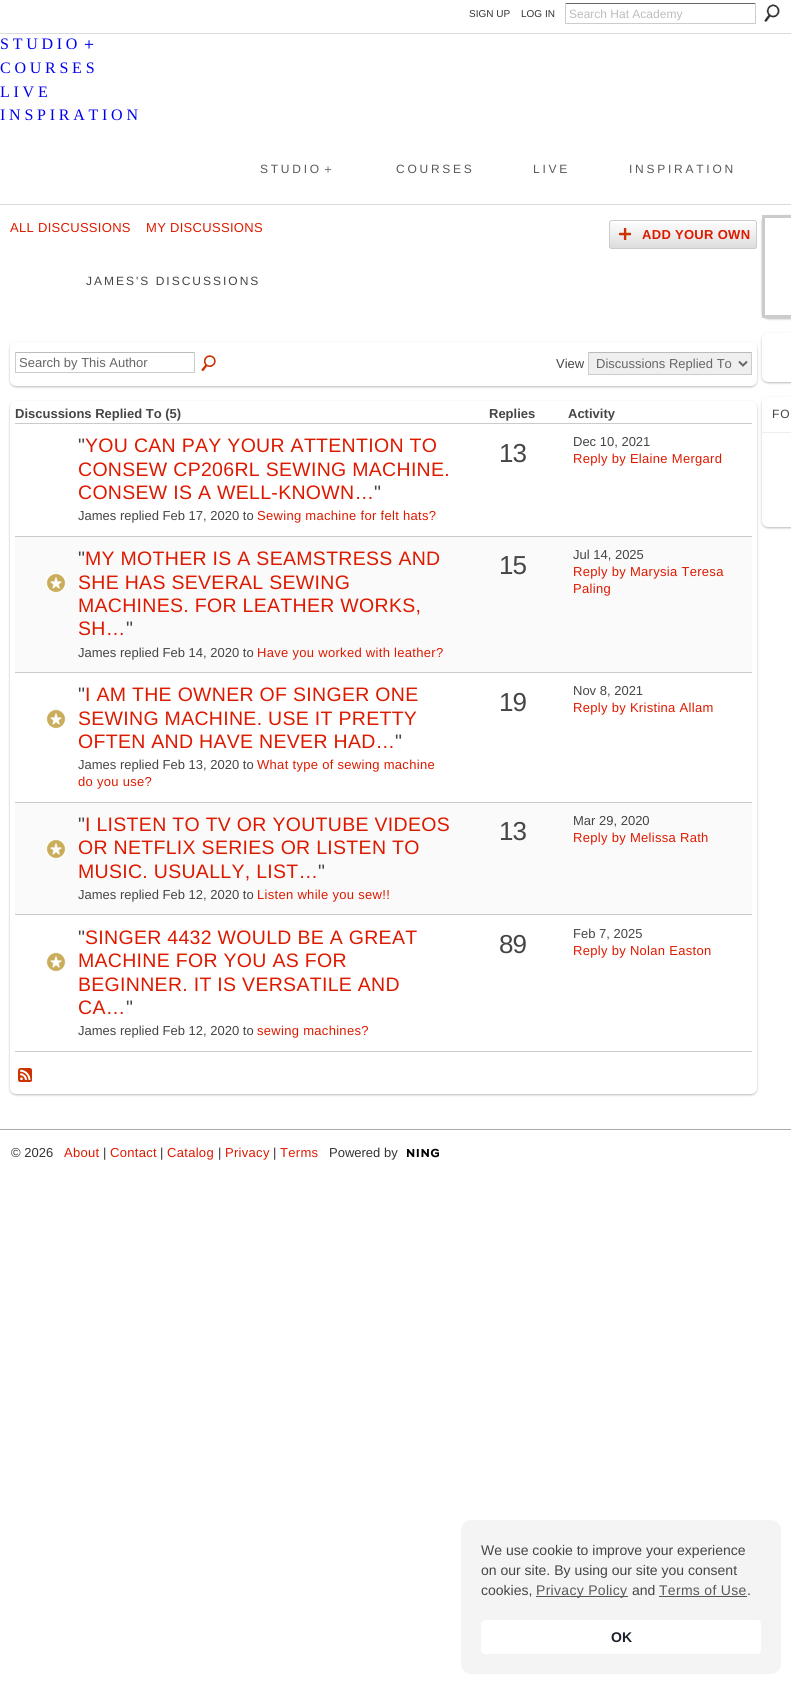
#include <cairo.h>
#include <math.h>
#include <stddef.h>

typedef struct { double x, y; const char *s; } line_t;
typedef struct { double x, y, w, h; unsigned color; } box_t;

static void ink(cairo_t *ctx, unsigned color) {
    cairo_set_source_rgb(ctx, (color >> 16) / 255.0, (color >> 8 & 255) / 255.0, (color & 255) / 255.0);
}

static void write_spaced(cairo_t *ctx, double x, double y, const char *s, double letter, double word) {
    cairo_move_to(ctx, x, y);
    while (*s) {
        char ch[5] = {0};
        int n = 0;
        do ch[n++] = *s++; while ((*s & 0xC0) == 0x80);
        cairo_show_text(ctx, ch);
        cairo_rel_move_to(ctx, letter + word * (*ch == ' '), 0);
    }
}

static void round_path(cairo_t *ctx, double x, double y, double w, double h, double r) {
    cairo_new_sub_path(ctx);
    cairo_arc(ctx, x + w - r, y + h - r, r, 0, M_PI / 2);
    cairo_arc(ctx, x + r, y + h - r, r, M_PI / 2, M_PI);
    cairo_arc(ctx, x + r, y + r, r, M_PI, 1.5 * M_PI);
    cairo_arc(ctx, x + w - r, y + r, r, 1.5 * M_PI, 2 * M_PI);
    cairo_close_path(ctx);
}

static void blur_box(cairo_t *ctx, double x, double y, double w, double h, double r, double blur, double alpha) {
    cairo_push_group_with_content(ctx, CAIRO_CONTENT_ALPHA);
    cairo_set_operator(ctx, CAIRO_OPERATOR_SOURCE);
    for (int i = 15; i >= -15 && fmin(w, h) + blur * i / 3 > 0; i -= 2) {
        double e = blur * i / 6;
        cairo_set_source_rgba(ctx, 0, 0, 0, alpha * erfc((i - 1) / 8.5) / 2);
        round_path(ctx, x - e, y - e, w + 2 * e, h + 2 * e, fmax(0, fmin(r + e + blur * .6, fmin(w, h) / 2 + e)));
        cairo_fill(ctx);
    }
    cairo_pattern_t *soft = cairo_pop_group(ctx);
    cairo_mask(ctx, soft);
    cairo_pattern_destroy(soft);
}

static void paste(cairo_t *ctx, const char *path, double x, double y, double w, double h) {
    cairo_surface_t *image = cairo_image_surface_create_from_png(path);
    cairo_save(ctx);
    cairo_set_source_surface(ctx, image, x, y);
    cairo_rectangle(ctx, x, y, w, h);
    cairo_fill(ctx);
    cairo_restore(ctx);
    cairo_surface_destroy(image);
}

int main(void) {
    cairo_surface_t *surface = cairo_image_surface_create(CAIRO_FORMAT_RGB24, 791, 1684);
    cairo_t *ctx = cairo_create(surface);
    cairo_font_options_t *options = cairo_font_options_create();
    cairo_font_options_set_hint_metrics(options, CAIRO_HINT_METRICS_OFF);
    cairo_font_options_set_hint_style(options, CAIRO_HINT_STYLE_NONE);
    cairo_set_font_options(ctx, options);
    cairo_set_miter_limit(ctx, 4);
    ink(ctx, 0xFFFFFF);
    cairo_paint(ctx);
    cairo_select_font_face(ctx, "Liberation Sans", CAIRO_FONT_SLANT_NORMAL, CAIRO_FONT_WEIGHT_NORMAL);
    cairo_set_font_size(ctx, 10);
    ink(ctx, 0x333333);
    cairo_move_to(ctx, 469, 17);
    cairo_show_text(ctx, "SIGN UP");
    cairo_move_to(ctx, 521, 17);
    cairo_show_text(ctx, "LOG IN");
    {
        static const box_t items[] = {
            {565, 3, 191, 1, 0x666666},
            {755, 3, 1, 21, 0xCCCCCC},
            {565, 23, 191, 1, 0xCCCCCC},
            {565, 3, 1, 21, 0xCCCCCC},
        };
        for (size_t i = 0; i < sizeof items / sizeof *items; i++) {
            ink(ctx, items[i].color);
            cairo_rectangle(ctx, items[i].x, items[i].y, items[i].w, items[i].h);
            cairo_fill(ctx);
        }
    }
    cairo_set_font_size(ctx, 12);
    ink(ctx, 0xBDBDBD);
    cairo_move_to(ctx, 569, 18);
    cairo_show_text(ctx, "Search Hat Academy");
    paste(ctx, "media/1.png", 764, 4, 16, 18);
    ink(ctx, 0xDBDBDB);
    cairo_rectangle(ctx, 0, 33, 791, 1);
    cairo_fill(ctx);
    cairo_select_font_face(ctx, "Liberation Serif", CAIRO_FONT_SLANT_NORMAL, CAIRO_FONT_WEIGHT_NORMAL);
    cairo_set_font_size(ctx, 16);
    ink(ctx, 0x0000EE);
    write_spaced(ctx, 0, 49, "STUDIO", 3.75, 0);
    cairo_select_font_face(ctx, "WenQuanYi Zen Hei Medium", CAIRO_FONT_SLANT_NORMAL, CAIRO_FONT_WEIGHT_NORMAL);
    write_spaced(ctx, 81, 49, "＋", 3.75, 0);
    cairo_select_font_face(ctx, "Liberation Serif", CAIRO_FONT_SLANT_NORMAL, CAIRO_FONT_WEIGHT_NORMAL);
    {
        static const line_t items[] = {
            {0, 73, "COURSES"},
            {0, 97, "LIVE"},
            {0, 120, "INSPIRATION"},
        };
        for (size_t i = 0; i < sizeof items / sizeof *items; i++) {
            write_spaced(ctx, items[i].x, items[i].y, items[i].s, 3.75, 0);
        }
    }
    cairo_select_font_face(ctx, "Liberation Sans", CAIRO_FONT_SLANT_NORMAL, CAIRO_FONT_WEIGHT_NORMAL);
    cairo_set_font_size(ctx, 12);
    ink(ctx, 0x595959);
    write_spaced(ctx, 260, 173, "STUDIO", 2.75, 0);
    cairo_select_font_face(ctx, "WenQuanYi Zen Hei Medium", CAIRO_FONT_SLANT_NORMAL, CAIRO_FONT_WEIGHT_NORMAL);
    write_spaced(ctx, 322, 173, "＋", 2.75, 0);
    cairo_select_font_face(ctx, "Liberation Sans", CAIRO_FONT_SLANT_NORMAL, CAIRO_FONT_WEIGHT_NORMAL);
    {
        static const line_t items[] = {
            {396, 173, "COURSES"},
            {533, 173, "LIVE"},
            {629, 173, "INSPIRATION"},
        };
        for (size_t i = 0; i < sizeof items / sizeof *items; i++) {
            write_spaced(ctx, items[i].x, items[i].y, items[i].s, 2.75, 0);
        }
    }
    ink(ctx, 0xDBDBDB);
    cairo_rectangle(ctx, 0, 204, 791, 1);
    cairo_fill(ctx);
    cairo_set_font_size(ctx, 13);
    ink(ctx, 0xDD1A00);
    write_spaced(ctx, 10, 232, "ALL DISCUSSIONS", 0.3, 0);
    write_spaced(ctx, 146, 232, "MY DISCUSSIONS", 0.3, 0);
    paste(ctx, "media/2.png", 609, 223, 148, 26);
    round_path(ctx, 609.5, 220.5, 147, 28, 2.5);
    ink(ctx, 0xCBCBCB);
    cairo_set_line_width(ctx, 1);
    cairo_stroke(ctx);
    paste(ctx, "media/3.png", 619, 228, 12, 12);
    cairo_select_font_face(ctx, "Liberation Sans", CAIRO_FONT_SLANT_NORMAL, CAIRO_FONT_WEIGHT_BOLD);
    ink(ctx, 0xDD1A00);
    write_spaced(ctx, 642, 239, "ADD YOUR OWN", 0.3, 0);
    cairo_select_font_face(ctx, "Liberation Sans", CAIRO_FONT_SLANT_NORMAL, CAIRO_FONT_WEIGHT_NORMAL);
    cairo_set_font_size(ctx, 12);
    ink(ctx, 0x454545);
    write_spaced(ctx, 86, 285, "JAMES'S DISCUSSIONS", 2, 0);
    ink(ctx, 0xBBBBBB);
    blur_box(ctx, 10, 343, 747, 44, 6, 1, 1);
    ink(ctx, 0xFFFFFF);
    round_path(ctx, 10, 342, 747, 44, 6);
    cairo_fill(ctx);
    {
        static const box_t items[] = {
            {15, 352, 180, 1, 0xBBBBBB},
            {194, 352, 1, 21, 0xCCCCCC},
            {15, 372, 180, 1, 0xCCCCCC},
            {15, 352, 1, 21, 0xCCCCCC},
        };
        for (size_t i = 0; i < sizeof items / sizeof *items; i++) {
            ink(ctx, items[i].color);
            cairo_rectangle(ctx, items[i].x, items[i].y, items[i].w, items[i].h);
            cairo_fill(ctx);
        }
    }
    cairo_set_font_size(ctx, 13);
    ink(ctx, 0x666666);
    cairo_move_to(ctx, 19, 367);
    cairo_show_text(ctx, "Search by This Author");
    paste(ctx, "media/4.png", 201, 355, 15, 16);
    ink(ctx, 0x454545);
    cairo_move_to(ctx, 556, 368);
    cairo_show_text(ctx, "View");
    {
        static const box_t items[] = {
            {589, 353, 162, 21, 0xEFEFEF},
            {588, 352, 164, 1, 0xBBBBBB},
            {751, 352, 1, 23, 0xCCCCCC},
            {588, 374, 164, 1, 0xCCCCCC},
            {588, 352, 1, 23, 0xCCCCCC},
        };
        for (size_t i = 0; i < sizeof items / sizeof *items; i++) {
            ink(ctx, items[i].color);
            cairo_rectangle(ctx, items[i].x, items[i].y, items[i].w, items[i].h);
            cairo_fill(ctx);
        }
    }
    cairo_new_path(ctx);
    cairo_move_to(ctx, 739, 361.5);
    cairo_line_to(ctx, 743, 365.5);
    cairo_line_to(ctx, 747, 361.5);
    ink(ctx, 0x666666);
    cairo_set_line_width(ctx, 2);
    cairo_stroke(ctx);
    cairo_move_to(ctx, 596, 368);
    cairo_show_text(ctx, "Discussions Replied To");
    ink(ctx, 0xBBBBBB);
    blur_box(ctx, 10, 402, 747, 693, 6, 1, 1);
    ink(ctx, 0xFFFFFF);
    round_path(ctx, 10, 401, 747, 693, 6);
    cairo_fill(ctx);
    cairo_select_font_face(ctx, "Liberation Sans", CAIRO_FONT_SLANT_NORMAL, CAIRO_FONT_WEIGHT_BOLD);
    ink(ctx, 0x454545);
    cairo_move_to(ctx, 15, 418);
    cairo_show_text(ctx, "Discussions Replied To (5)");
    cairo_move_to(ctx, 489, 418);
    cairo_show_text(ctx, "Replies");
    ink(ctx, 0xCBCBCB);
    cairo_rectangle(ctx, 15, 423, 737, 1);
    cairo_fill(ctx);
    ink(ctx, 0x454545);
    cairo_move_to(ctx, 568, 418);
    cairo_show_text(ctx, "Activity");
    cairo_select_font_face(ctx, "Liberation Sans", CAIRO_FONT_SLANT_NORMAL, CAIRO_FONT_WEIGHT_NORMAL);
    cairo_set_font_size(ctx, 19.5);
    cairo_move_to(ctx, 78, 452);
    cairo_show_text(ctx, "\"");
    ink(ctx, 0xDD1A00);
    {
        static const line_t items[] = {
            {85, 452, "YOU CAN PAY YOUR ATTENTION TO"},
            {78, 476, "CONSEW CP206RL SEWING MACHINE."},
            {78, 499, "CONSEW IS A WELL-KNOWN…"},
        };
        for (size_t i = 0; i < sizeof items / sizeof *items; i++) {
            write_spaced(ctx, items[i].x, items[i].y, items[i].s, 0.3, 0);
        }
    }
    ink(ctx, 0x454545);
    cairo_move_to(ctx, 374, 499);
    cairo_show_text(ctx, "\"");
    cairo_set_font_size(ctx, 13);
    cairo_move_to(ctx, 78, 520);
    cairo_show_text(ctx, "James replied Feb 17, 2020 to");
    ink(ctx, 0xDD1A00);
    write_spaced(ctx, 257, 520, "Sewing machine for felt hats?", 0.3, 0);
    cairo_set_font_size(ctx, 26);
    ink(ctx, 0x454545);
    write_spaced(ctx, 499, 462, "13", -1, 0);
    ink(ctx, 0xCBCBCB);
    cairo_rectangle(ctx, 15, 536, 737, 1);
    cairo_fill(ctx);
    cairo_set_font_size(ctx, 13);
    ink(ctx, 0x454545);
    cairo_move_to(ctx, 573, 446);
    cairo_show_text(ctx, "Dec 10, 2021");
    ink(ctx, 0xDD1A00);
    write_spaced(ctx, 573, 463, "Reply by Elaine Mergard", 0.3, 0);
    ink(ctx, 0xFAFAFA);
    cairo_rectangle(ctx, 15, 537, 737, 135);
    cairo_fill(ctx);
    paste(ctx, "media/5.png", 46, 573, 20, 20);
    cairo_set_font_size(ctx, 19.5);
    ink(ctx, 0x454545);
    cairo_move_to(ctx, 78, 565);
    cairo_show_text(ctx, "\"");
    ink(ctx, 0xDD1A00);
    {
        static const line_t items[] = {
            {85, 565, "MY MOTHER IS A SEAMSTRESS AND"},
            {78, 589, "SHE HAS SEVERAL SEWING"},
            {78, 612, "MACHINES. FOR LEATHER WORKS,"},
            {78, 635, "SH…"},
        };
        for (size_t i = 0; i < sizeof items / sizeof *items; i++) {
            write_spaced(ctx, items[i].x, items[i].y, items[i].s, 0.3, 0);
        }
    }
    ink(ctx, 0x454545);
    cairo_move_to(ctx, 126, 635);
    cairo_show_text(ctx, "\"");
    cairo_set_font_size(ctx, 13);
    cairo_move_to(ctx, 78, 657);
    cairo_show_text(ctx, "James replied Feb 14, 2020 to");
    ink(ctx, 0xDD1A00);
    write_spaced(ctx, 257, 657, "Have you worked with leather?", 0.3, 0);
    cairo_set_font_size(ctx, 26);
    ink(ctx, 0x454545);
    write_spaced(ctx, 499, 574, "15", -1, 0);
    ink(ctx, 0xCBCBCB);
    cairo_rectangle(ctx, 15, 672, 737, 1);
    cairo_fill(ctx);
    cairo_set_font_size(ctx, 13);
    ink(ctx, 0x454545);
    cairo_move_to(ctx, 573, 559);
    cairo_show_text(ctx, "Jul 14, 2025");
    ink(ctx, 0xDD1A00);
    write_spaced(ctx, 573, 576, "Reply by Marysia Teresa", 0.3, 0);
    write_spaced(ctx, 573, 593, "Paling", 0.3, 0);
    paste(ctx, "media/6.png", 46, 709, 20, 20);
    cairo_set_font_size(ctx, 19.5);
    ink(ctx, 0x454545);
    cairo_move_to(ctx, 78, 701);
    cairo_show_text(ctx, "\"");
    ink(ctx, 0xDD1A00);
    {
        static const line_t items[] = {
            {85, 701, "I AM THE OWNER OF SINGER ONE"},
            {78, 725, "SEWING MACHINE. USE IT PRETTY"},
            {78, 748, "OFTEN AND HAVE NEVER HAD…"},
        };
        for (size_t i = 0; i < sizeof items / sizeof *items; i++) {
            write_spaced(ctx, items[i].x, items[i].y, items[i].s, 0.3, 0);
        }
    }
    ink(ctx, 0x454545);
    cairo_move_to(ctx, 395, 748);
    cairo_show_text(ctx, "\"");
    cairo_set_font_size(ctx, 13);
    cairo_move_to(ctx, 78, 769);
    cairo_show_text(ctx, "James replied Feb 13, 2020 to");
    ink(ctx, 0xDD1A00);
    write_spaced(ctx, 257, 769, "What type of sewing machine", 0.3, 0);
    write_spaced(ctx, 78, 786, "do you use?", 0.3, 0);
    cairo_set_font_size(ctx, 26);
    ink(ctx, 0x454545);
    write_spaced(ctx, 499, 711, "19", -1, 0);
    ink(ctx, 0xCBCBCB);
    cairo_rectangle(ctx, 15, 802, 737, 1);
    cairo_fill(ctx);
    cairo_set_font_size(ctx, 13);
    ink(ctx, 0x454545);
    cairo_move_to(ctx, 573, 695);
    cairo_show_text(ctx, "Nov 8, 2021");
    ink(ctx, 0xDD1A00);
    write_spaced(ctx, 573, 712, "Reply by Kristina Allam", 0.3, 0);
    ink(ctx, 0xFAFAFA);
    cairo_rectangle(ctx, 15, 803, 737, 111);
    cairo_fill(ctx);
    paste(ctx, "media/5.png", 46, 839, 20, 20);
    cairo_set_font_size(ctx, 19.5);
    ink(ctx, 0x454545);
    cairo_move_to(ctx, 78, 831);
    cairo_show_text(ctx, "\"");
    ink(ctx, 0xDD1A00);
    {
        static const line_t items[] = {
            {85, 831, "I LISTEN TO TV OR YOUTUBE VIDEOS"},
            {78, 854, "OR NETFLIX SERIES OR LISTEN TO"},
            {78, 878, "MUSIC. USUALLY, LIST…"},
        };
        for (size_t i = 0; i < sizeof items / sizeof *items; i++) {
            write_spaced(ctx, items[i].x, items[i].y, items[i].s, 0.3, 0);
        }
    }
    ink(ctx, 0x454545);
    cairo_move_to(ctx, 318, 878);
    cairo_show_text(ctx, "\"");
    cairo_set_font_size(ctx, 13);
    cairo_move_to(ctx, 78, 899);
    cairo_show_text(ctx, "James replied Feb 12, 2020 to");
    ink(ctx, 0xDD1A00);
    write_spaced(ctx, 257, 899, "Listen while you sew!!", 0.3, 0);
    cairo_set_font_size(ctx, 26);
    ink(ctx, 0x454545);
    write_spaced(ctx, 499, 840, "13", -1, 0);
    ink(ctx, 0xCBCBCB);
    cairo_rectangle(ctx, 15, 914, 737, 1);
    cairo_fill(ctx);
    cairo_set_font_size(ctx, 13);
    ink(ctx, 0x454545);
    cairo_move_to(ctx, 573, 825);
    cairo_show_text(ctx, "Mar 29, 2020");
    ink(ctx, 0xDD1A00);
    write_spaced(ctx, 573, 842, "Reply by Melissa Rath", 0.3, 0);
    paste(ctx, "media/6.png", 46, 952, 20, 20);
    cairo_set_font_size(ctx, 19.5);
    ink(ctx, 0x454545);
    cairo_move_to(ctx, 78, 944);
    cairo_show_text(ctx, "\"");
    ink(ctx, 0xDD1A00);
    {
        static const line_t items[] = {
            {85, 944, "SINGER 4432 WOULD BE A GREAT"},
            {78, 967, "MACHINE FOR YOU AS FOR"},
            {78, 991, "BEGINNER. IT IS VERSATILE AND"},
            {78, 1014, "CA…"},
        };
        for (size_t i = 0; i < sizeof items / sizeof *items; i++) {
            write_spaced(ctx, items[i].x, items[i].y, items[i].s, 0.3, 0);
        }
    }
    ink(ctx, 0x454545);
    cairo_move_to(ctx, 126, 1014);
    cairo_show_text(ctx, "\"");
    cairo_set_font_size(ctx, 13);
    cairo_move_to(ctx, 78, 1035);
    cairo_show_text(ctx, "James replied Feb 12, 2020 to");
    ink(ctx, 0xDD1A00);
    write_spaced(ctx, 257, 1035, "sewing machines?", 0.3, 0);
    cairo_set_font_size(ctx, 26);
    ink(ctx, 0x454545);
    write_spaced(ctx, 499, 953, "89", -1, 0);
    ink(ctx, 0xCBCBCB);
    cairo_rectangle(ctx, 15, 1051, 737, 1);
    cairo_fill(ctx);
    cairo_set_font_size(ctx, 13);
    ink(ctx, 0x454545);
    cairo_move_to(ctx, 573, 938);
    cairo_show_text(ctx, "Feb 7, 2025");
    ink(ctx, 0xDD1A00);
    write_spaced(ctx, 573, 955, "Reply by Nolan Easton", 0.3, 0);
    paste(ctx, "media/7.png", 18, 1068, 14, 14);
    ink(ctx, 0xBBBBBB);
    blur_box(ctx, 762, 216, 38, 103, 6, 1, 1);
    ink(ctx, 0xFFFFFF);
    cairo_rectangle(ctx, 763.5, 216.5, 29, 100);
    cairo_fill_preserve(ctx);
    ink(ctx, 0xCBCBCB);
    cairo_set_line_width(ctx, 3);
    cairo_stroke(ctx);
    ink(ctx, 0xBBBBBB);
    blur_box(ctx, 762, 334, 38, 49, 6, 1, 1);
    ink(ctx, 0xFFFFFF);
    round_path(ctx, 762, 333, 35, 49, 6);
    cairo_fill(ctx);
    ink(ctx, 0xBBBBBB);
    blur_box(ctx, 762, 398, 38, 130, 6, 1, 1);
    ink(ctx, 0xFFFFFF);
    round_path(ctx, 762, 397, 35, 130, 6);
    cairo_fill(ctx);
    cairo_new_path(ctx);
    cairo_move_to(ctx, 768, 397);
    cairo_line_to(ctx, 791, 397);
    cairo_curve_to(ctx, 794.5, 397, 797, 399.5, 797, 403);
    cairo_line_to(ctx, 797, 432);
    cairo_line_to(ctx, 762, 432);
    cairo_line_to(ctx, 762, 403);
    cairo_curve_to(ctx, 762, 399.5, 764.5, 397, 768, 397);
    cairo_close_path(ctx);
    cairo_fill(ctx);
    ink(ctx, 0xEEEEEE);
    cairo_rectangle(ctx, 762, 432, 29, 1);
    cairo_fill(ctx);
    cairo_set_font_size(ctx, 12);
    ink(ctx, 0x454545);
    write_spaced(ctx, 772, 418, "FO", 1, 0);
    ink(ctx, 0xAAAAAA);
    cairo_rectangle(ctx, 0, 1129, 791, 1);
    cairo_fill(ctx);
    cairo_set_font_size(ctx, 13);
    ink(ctx, 0x333333);
    cairo_move_to(ctx, 11, 1157);
    cairo_show_text(ctx, "© 2026");
    ink(ctx, 0xDD1A00);
    write_spaced(ctx, 64, 1157, "About", 0.3, 0);
    ink(ctx, 0x333333);
    cairo_move_to(ctx, 103, 1157);
    cairo_show_text(ctx, "|");
    ink(ctx, 0xDD1A00);
    write_spaced(ctx, 110, 1157, "Contact", 0.3, 0);
    ink(ctx, 0x333333);
    cairo_move_to(ctx, 160, 1157);
    cairo_show_text(ctx, "|");
    ink(ctx, 0xDD1A00);
    write_spaced(ctx, 167, 1157, "Catalog", 0.3, 0);
    ink(ctx, 0x333333);
    cairo_move_to(ctx, 218, 1157);
    cairo_show_text(ctx, "|");
    ink(ctx, 0xDD1A00);
    write_spaced(ctx, 225, 1157, "Privacy", 0.3, 0);
    ink(ctx, 0x333333);
    cairo_move_to(ctx, 273, 1157);
    cairo_show_text(ctx, "|");
    ink(ctx, 0xDD1A00);
    write_spaced(ctx, 280, 1157, "Terms", 0.3, 0);
    ink(ctx, 0x333333);
    cairo_move_to(ctx, 329, 1157);
    cairo_show_text(ctx, "Powered by");
    paste(ctx, "media/8.png", 407, 1148, 32, 10);
    ink(ctx, 0xF4F4F4);
    round_path(ctx, 461, 1520, 320, 154, 10);
    cairo_fill(ctx);
    cairo_set_font_size(ctx, 14);
    ink(ctx, 0x454545);
    {
        static const line_t items[] = {
            {481, 1555, "We use cookie to improve your experience"},
            {481, 1575, "on our site. By using our site you consent"},
            {481, 1595, "cookies,"},
        };
        for (size_t i = 0; i < sizeof items / sizeof *items; i++) {
            cairo_move_to(ctx, items[i].x, items[i].y);
            cairo_show_text(ctx, items[i].s);
        }
    }
    ink(ctx, 0x575757);
    cairo_rectangle(ctx, 536, 1596, 92, 1);
    cairo_fill(ctx);
    ink(ctx, 0x595959);
    write_spaced(ctx, 536, 1595, "Privacy Policy", 0.3, 0);
    ink(ctx, 0x454545);
    cairo_move_to(ctx, 632, 1595);
    cairo_show_text(ctx, "and");
    ink(ctx, 0x595959);
    write_spaced(ctx, 659, 1595, "Terms of Use", 0.3, 0);
    ink(ctx, 0x454545);
    cairo_move_to(ctx, 747, 1595);
    cairo_show_text(ctx, ".");
    ink(ctx, 0x575757);
    cairo_rectangle(ctx, 659, 1596, 88, 1);
    cairo_fill(ctx);
    ink(ctx, 0xFFFFFF);
    round_path(ctx, 481, 1620, 280, 34, 4);
    cairo_fill(ctx);
    cairo_select_font_face(ctx, "Liberation Sans", CAIRO_FONT_SLANT_NORMAL, CAIRO_FONT_WEIGHT_BOLD);
    ink(ctx, 0x1D2129);
    cairo_move_to(ctx, 611, 1642);
    cairo_show_text(ctx, "OK");
    cairo_surface_write_to_png(surface, "image.png");
    cairo_font_options_destroy(options);
    cairo_destroy(ctx);
    cairo_surface_destroy(surface);
    return 0;
}
